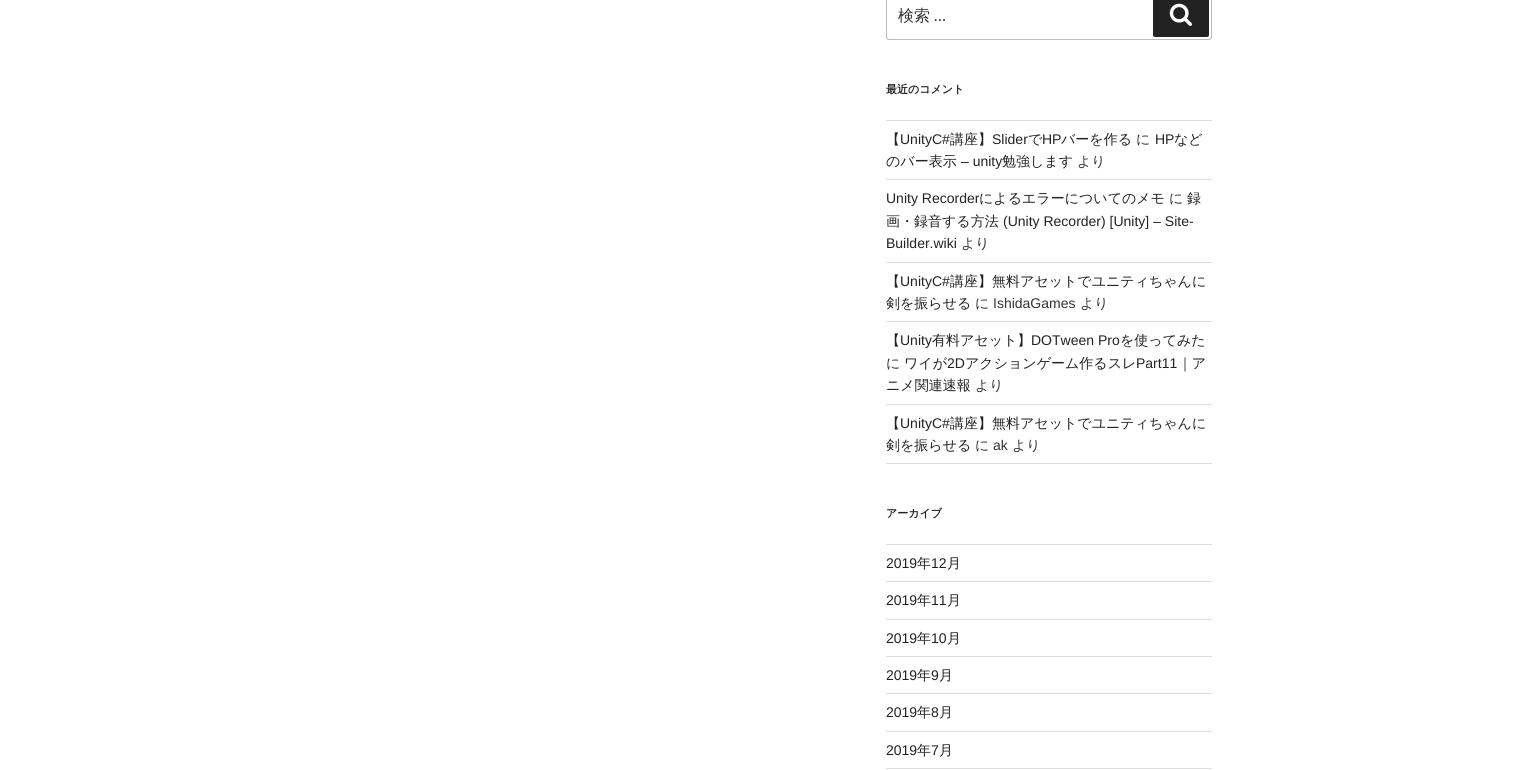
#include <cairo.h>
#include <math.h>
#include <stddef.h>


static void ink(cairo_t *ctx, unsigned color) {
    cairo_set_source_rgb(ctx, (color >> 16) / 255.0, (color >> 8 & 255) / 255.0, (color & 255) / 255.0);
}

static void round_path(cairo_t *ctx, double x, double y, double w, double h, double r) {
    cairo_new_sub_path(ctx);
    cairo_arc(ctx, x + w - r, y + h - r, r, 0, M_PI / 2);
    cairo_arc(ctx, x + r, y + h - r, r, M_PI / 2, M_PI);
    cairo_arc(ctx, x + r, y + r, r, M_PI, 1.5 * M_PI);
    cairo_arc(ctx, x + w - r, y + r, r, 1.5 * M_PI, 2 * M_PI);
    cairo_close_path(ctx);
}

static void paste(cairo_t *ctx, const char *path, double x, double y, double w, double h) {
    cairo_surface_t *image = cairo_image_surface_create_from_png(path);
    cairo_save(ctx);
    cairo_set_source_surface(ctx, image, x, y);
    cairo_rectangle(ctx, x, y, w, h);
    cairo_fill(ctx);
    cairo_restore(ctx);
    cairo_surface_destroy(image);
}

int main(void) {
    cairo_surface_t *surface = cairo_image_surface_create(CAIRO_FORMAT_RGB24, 1519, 770);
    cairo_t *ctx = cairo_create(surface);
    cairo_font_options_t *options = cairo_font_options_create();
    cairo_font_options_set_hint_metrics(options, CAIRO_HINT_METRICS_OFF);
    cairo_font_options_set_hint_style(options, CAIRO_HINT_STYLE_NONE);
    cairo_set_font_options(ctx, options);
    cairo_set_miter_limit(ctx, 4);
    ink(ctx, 0xFFFFFF);
    cairo_paint(ctx);
    round_path(ctx, 886.5, -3.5, 325, 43, 2.5);
    ink(ctx, 0xBBBBBB);
    cairo_set_line_width(ctx, 1);
    cairo_stroke(ctx);
    cairo_select_font_face(ctx, "WenQuanYi Zen Hei Medium", CAIRO_FONT_SLANT_NORMAL, CAIRO_FONT_WEIGHT_NORMAL);
    cairo_set_font_size(ctx, 16);
    ink(ctx, 0x333333);
    cairo_move_to(ctx, 898, 21);
    cairo_show_text(ctx, "検索");
    cairo_select_font_face(ctx, "Libre Franklin", CAIRO_FONT_SLANT_NORMAL, CAIRO_FONT_WEIGHT_NORMAL);
    cairo_move_to(ctx, 934, 21);
    cairo_show_text(ctx, "…");
    ink(ctx, 0x222222);
    round_path(ctx, 1153, -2, 56, 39, 2);
    cairo_fill(ctx);
    paste(ctx, "media/1.png", 1169, 3, 23, 23);
    cairo_select_font_face(ctx, "WenQuanYi Zen Hei", CAIRO_FONT_SLANT_NORMAL, CAIRO_FONT_WEIGHT_BOLD);
    cairo_set_font_size(ctx, 11);
    cairo_move_to(ctx, 886, 93);
    cairo_show_text(ctx, "最近のコメント");
    ink(ctx, 0xDDDDDD);
    cairo_rectangle(ctx, 886, 120, 326, 1);
    cairo_fill(ctx);
    cairo_rectangle(ctx, 886, 179, 326, 1);
    cairo_fill(ctx);
    cairo_select_font_face(ctx, "WenQuanYi Zen Hei Medium", CAIRO_FONT_SLANT_NORMAL, CAIRO_FONT_WEIGHT_NORMAL);
    cairo_set_font_size(ctx, 14);
    ink(ctx, 0x222222);
    cairo_move_to(ctx, 886, 144);
    cairo_show_text(ctx, "【");
    cairo_select_font_face(ctx, "Liberation Sans", CAIRO_FONT_SLANT_NORMAL, CAIRO_FONT_WEIGHT_NORMAL);
    cairo_move_to(ctx, 900, 144);
    cairo_show_text(ctx, "UnityC#");
    cairo_select_font_face(ctx, "WenQuanYi Zen Hei Medium", CAIRO_FONT_SLANT_NORMAL, CAIRO_FONT_WEIGHT_NORMAL);
    cairo_move_to(ctx, 950, 144);
    cairo_show_text(ctx, "講座】");
    cairo_select_font_face(ctx, "Liberation Sans", CAIRO_FONT_SLANT_NORMAL, CAIRO_FONT_WEIGHT_NORMAL);
    cairo_move_to(ctx, 992, 144);
    cairo_show_text(ctx, "Slider");
    cairo_select_font_face(ctx, "WenQuanYi Zen Hei Medium", CAIRO_FONT_SLANT_NORMAL, CAIRO_FONT_WEIGHT_NORMAL);
    cairo_move_to(ctx, 1028, 144);
    cairo_show_text(ctx, "で");
    cairo_select_font_face(ctx, "Liberation Sans", CAIRO_FONT_SLANT_NORMAL, CAIRO_FONT_WEIGHT_NORMAL);
    cairo_move_to(ctx, 1042, 144);
    cairo_show_text(ctx, "HP");
    cairo_select_font_face(ctx, "WenQuanYi Zen Hei Medium", CAIRO_FONT_SLANT_NORMAL, CAIRO_FONT_WEIGHT_NORMAL);
    cairo_move_to(ctx, 1061, 144);
    cairo_show_text(ctx, "バーを作る");
    ink(ctx, 0x333333);
    cairo_move_to(ctx, 1136, 144);
    cairo_show_text(ctx, "に");
    cairo_select_font_face(ctx, "Liberation Sans", CAIRO_FONT_SLANT_NORMAL, CAIRO_FONT_WEIGHT_NORMAL);
    ink(ctx, 0x222222);
    cairo_move_to(ctx, 1155, 144);
    cairo_show_text(ctx, "HP");
    cairo_select_font_face(ctx, "WenQuanYi Zen Hei Medium", CAIRO_FONT_SLANT_NORMAL, CAIRO_FONT_WEIGHT_NORMAL);
    cairo_move_to(ctx, 1174, 144);
    cairo_show_text(ctx, "など");
    cairo_move_to(ctx, 886, 166);
    cairo_show_text(ctx, "のバー表示");
    cairo_select_font_face(ctx, "Liberation Sans", CAIRO_FONT_SLANT_NORMAL, CAIRO_FONT_WEIGHT_NORMAL);
    cairo_move_to(ctx, 961, 166);
    cairo_show_text(ctx, "– unity");
    cairo_select_font_face(ctx, "WenQuanYi Zen Hei Medium", CAIRO_FONT_SLANT_NORMAL, CAIRO_FONT_WEIGHT_NORMAL);
    cairo_move_to(ctx, 1002, 166);
    cairo_show_text(ctx, "勉強します");
    ink(ctx, 0x333333);
    cairo_move_to(ctx, 1077, 166);
    cairo_show_text(ctx, "より");
    ink(ctx, 0xDDDDDD);
    cairo_rectangle(ctx, 886, 262, 326, 1);
    cairo_fill(ctx);
    cairo_select_font_face(ctx, "Liberation Sans", CAIRO_FONT_SLANT_NORMAL, CAIRO_FONT_WEIGHT_NORMAL);
    ink(ctx, 0x222222);
    cairo_move_to(ctx, 886, 203);
    cairo_show_text(ctx, "Unity Recorder");
    cairo_select_font_face(ctx, "WenQuanYi Zen Hei Medium", CAIRO_FONT_SLANT_NORMAL, CAIRO_FONT_WEIGHT_NORMAL);
    cairo_move_to(ctx, 979, 203);
    cairo_show_text(ctx, "によるエラーについてのメモ");
    ink(ctx, 0x333333);
    cairo_move_to(ctx, 1169, 203);
    cairo_show_text(ctx, "に");
    ink(ctx, 0x222222);
    cairo_move_to(ctx, 1187, 203);
    cairo_show_text(ctx, "録");
    cairo_move_to(ctx, 886, 226);
    cairo_show_text(ctx, "画・録音する方法");
    cairo_select_font_face(ctx, "Liberation Sans", CAIRO_FONT_SLANT_NORMAL, CAIRO_FONT_WEIGHT_NORMAL);
    cairo_move_to(ctx, 1003, 226);
    cairo_show_text(ctx, "(Unity Recorder) [Unity] – Site-");
    cairo_move_to(ctx, 886, 248);
    cairo_show_text(ctx, "Builder.wiki");
    cairo_select_font_face(ctx, "WenQuanYi Zen Hei Medium", CAIRO_FONT_SLANT_NORMAL, CAIRO_FONT_WEIGHT_NORMAL);
    ink(ctx, 0x333333);
    cairo_move_to(ctx, 961, 248);
    cairo_show_text(ctx, "より");
    ink(ctx, 0xDDDDDD);
    cairo_rectangle(ctx, 886, 321, 326, 1);
    cairo_fill(ctx);
    ink(ctx, 0x222222);
    cairo_move_to(ctx, 886, 286);
    cairo_show_text(ctx, "【");
    cairo_select_font_face(ctx, "Liberation Sans", CAIRO_FONT_SLANT_NORMAL, CAIRO_FONT_WEIGHT_NORMAL);
    cairo_move_to(ctx, 900, 286);
    cairo_show_text(ctx, "UnityC#");
    cairo_select_font_face(ctx, "WenQuanYi Zen Hei Medium", CAIRO_FONT_SLANT_NORMAL, CAIRO_FONT_WEIGHT_NORMAL);
    cairo_move_to(ctx, 950, 286);
    cairo_show_text(ctx, "講座】無料アセットでユニティちゃんに");
    cairo_move_to(ctx, 886, 308);
    cairo_show_text(ctx, "剣を振らせる");
    ink(ctx, 0x333333);
    cairo_move_to(ctx, 975, 308);
    cairo_show_text(ctx, "に");
    cairo_select_font_face(ctx, "Liberation Sans", CAIRO_FONT_SLANT_NORMAL, CAIRO_FONT_WEIGHT_NORMAL);
    cairo_move_to(ctx, 993, 308);
    cairo_show_text(ctx, "IshidaGames");
    cairo_select_font_face(ctx, "WenQuanYi Zen Hei Medium", CAIRO_FONT_SLANT_NORMAL, CAIRO_FONT_WEIGHT_NORMAL);
    cairo_move_to(ctx, 1080, 308);
    cairo_show_text(ctx, "より");
    ink(ctx, 0xDDDDDD);
    cairo_rectangle(ctx, 886, 404, 326, 1);
    cairo_fill(ctx);
    ink(ctx, 0x222222);
    cairo_move_to(ctx, 886, 345);
    cairo_show_text(ctx, "【");
    cairo_select_font_face(ctx, "Liberation Sans", CAIRO_FONT_SLANT_NORMAL, CAIRO_FONT_WEIGHT_NORMAL);
    cairo_move_to(ctx, 900, 345);
    cairo_show_text(ctx, "Unity");
    cairo_select_font_face(ctx, "WenQuanYi Zen Hei Medium", CAIRO_FONT_SLANT_NORMAL, CAIRO_FONT_WEIGHT_NORMAL);
    cairo_move_to(ctx, 932, 345);
    cairo_show_text(ctx, "有料アセット】");
    cairo_select_font_face(ctx, "Liberation Sans", CAIRO_FONT_SLANT_NORMAL, CAIRO_FONT_WEIGHT_NORMAL);
    cairo_move_to(ctx, 1031, 345);
    cairo_show_text(ctx, "DOTween Pro");
    cairo_select_font_face(ctx, "WenQuanYi Zen Hei Medium", CAIRO_FONT_SLANT_NORMAL, CAIRO_FONT_WEIGHT_NORMAL);
    cairo_move_to(ctx, 1120, 345);
    cairo_show_text(ctx, "を使ってみた");
    ink(ctx, 0x333333);
    cairo_move_to(ctx, 886, 368);
    cairo_show_text(ctx, "に");
    ink(ctx, 0x222222);
    cairo_move_to(ctx, 904, 368);
    cairo_show_text(ctx, "ワイが");
    cairo_select_font_face(ctx, "Liberation Sans", CAIRO_FONT_SLANT_NORMAL, CAIRO_FONT_WEIGHT_NORMAL);
    cairo_move_to(ctx, 947, 368);
    cairo_show_text(ctx, "2D");
    cairo_select_font_face(ctx, "WenQuanYi Zen Hei Medium", CAIRO_FONT_SLANT_NORMAL, CAIRO_FONT_WEIGHT_NORMAL);
    cairo_move_to(ctx, 965, 368);
    cairo_show_text(ctx, "アクションゲーム作るスレ");
    cairo_select_font_face(ctx, "Liberation Sans", CAIRO_FONT_SLANT_NORMAL, CAIRO_FONT_WEIGHT_NORMAL);
    cairo_move_to(ctx, 1136, 368);
    cairo_show_text(ctx, "Part11");
    cairo_select_font_face(ctx, "WenQuanYi Zen Hei Medium", CAIRO_FONT_SLANT_NORMAL, CAIRO_FONT_WEIGHT_NORMAL);
    cairo_move_to(ctx, 1178, 368);
    cairo_show_text(ctx, "｜ア");
    cairo_move_to(ctx, 886, 390);
    cairo_show_text(ctx, "ニメ関連速報");
    ink(ctx, 0x333333);
    cairo_move_to(ctx, 975, 390);
    cairo_show_text(ctx, "より");
    ink(ctx, 0xDDDDDD);
    cairo_rectangle(ctx, 886, 463, 326, 1);
    cairo_fill(ctx);
    ink(ctx, 0x222222);
    cairo_move_to(ctx, 886, 428);
    cairo_show_text(ctx, "【");
    cairo_select_font_face(ctx, "Liberation Sans", CAIRO_FONT_SLANT_NORMAL, CAIRO_FONT_WEIGHT_NORMAL);
    cairo_move_to(ctx, 900, 428);
    cairo_show_text(ctx, "UnityC#");
    cairo_select_font_face(ctx, "WenQuanYi Zen Hei Medium", CAIRO_FONT_SLANT_NORMAL, CAIRO_FONT_WEIGHT_NORMAL);
    cairo_move_to(ctx, 950, 428);
    cairo_show_text(ctx, "講座】無料アセットでユニティちゃんに");
    cairo_move_to(ctx, 886, 450);
    cairo_show_text(ctx, "剣を振らせる");
    ink(ctx, 0x333333);
    cairo_move_to(ctx, 975, 450);
    cairo_show_text(ctx, "に");
    cairo_select_font_face(ctx, "Liberation Sans", CAIRO_FONT_SLANT_NORMAL, CAIRO_FONT_WEIGHT_NORMAL);
    cairo_move_to(ctx, 993, 450);
    cairo_show_text(ctx, "ak");
    cairo_select_font_face(ctx, "WenQuanYi Zen Hei Medium", CAIRO_FONT_SLANT_NORMAL, CAIRO_FONT_WEIGHT_NORMAL);
    cairo_move_to(ctx, 1012, 450);
    cairo_show_text(ctx, "より");
    cairo_select_font_face(ctx, "WenQuanYi Zen Hei", CAIRO_FONT_SLANT_NORMAL, CAIRO_FONT_WEIGHT_BOLD);
    cairo_set_font_size(ctx, 11);
    ink(ctx, 0x222222);
    cairo_move_to(ctx, 886, 517);
    cairo_show_text(ctx, "アーカイブ");
    ink(ctx, 0xDDDDDD);
    cairo_rectangle(ctx, 886, 544, 326, 1);
    cairo_fill(ctx);
    cairo_rectangle(ctx, 886, 581, 326, 1);
    cairo_fill(ctx);
    cairo_select_font_face(ctx, "Liberation Sans", CAIRO_FONT_SLANT_NORMAL, CAIRO_FONT_WEIGHT_NORMAL);
    cairo_set_font_size(ctx, 14);
    ink(ctx, 0x222222);
    cairo_move_to(ctx, 886, 568);
    cairo_show_text(ctx, "2019");
    cairo_select_font_face(ctx, "WenQuanYi Zen Hei Medium", CAIRO_FONT_SLANT_NORMAL, CAIRO_FONT_WEIGHT_NORMAL);
    cairo_move_to(ctx, 917, 568);
    cairo_show_text(ctx, "年");
    cairo_select_font_face(ctx, "Liberation Sans", CAIRO_FONT_SLANT_NORMAL, CAIRO_FONT_WEIGHT_NORMAL);
    cairo_move_to(ctx, 931, 568);
    cairo_show_text(ctx, "12");
    cairo_select_font_face(ctx, "WenQuanYi Zen Hei Medium", CAIRO_FONT_SLANT_NORMAL, CAIRO_FONT_WEIGHT_NORMAL);
    cairo_move_to(ctx, 947, 568);
    cairo_show_text(ctx, "月");
    ink(ctx, 0xDDDDDD);
    cairo_rectangle(ctx, 886, 619, 326, 1);
    cairo_fill(ctx);
    cairo_select_font_face(ctx, "Liberation Sans", CAIRO_FONT_SLANT_NORMAL, CAIRO_FONT_WEIGHT_NORMAL);
    ink(ctx, 0x222222);
    cairo_move_to(ctx, 886, 605);
    cairo_show_text(ctx, "2019");
    cairo_select_font_face(ctx, "WenQuanYi Zen Hei Medium", CAIRO_FONT_SLANT_NORMAL, CAIRO_FONT_WEIGHT_NORMAL);
    cairo_move_to(ctx, 917, 605);
    cairo_show_text(ctx, "年");
    cairo_select_font_face(ctx, "Liberation Sans", CAIRO_FONT_SLANT_NORMAL, CAIRO_FONT_WEIGHT_NORMAL);
    cairo_move_to(ctx, 931, 605);
    cairo_show_text(ctx, "11");
    cairo_select_font_face(ctx, "WenQuanYi Zen Hei Medium", CAIRO_FONT_SLANT_NORMAL, CAIRO_FONT_WEIGHT_NORMAL);
    cairo_move_to(ctx, 947, 605);
    cairo_show_text(ctx, "月");
    ink(ctx, 0xDDDDDD);
    cairo_rectangle(ctx, 886, 656, 326, 1);
    cairo_fill(ctx);
    cairo_select_font_face(ctx, "Liberation Sans", CAIRO_FONT_SLANT_NORMAL, CAIRO_FONT_WEIGHT_NORMAL);
    ink(ctx, 0x222222);
    cairo_move_to(ctx, 886, 643);
    cairo_show_text(ctx, "2019");
    cairo_select_font_face(ctx, "WenQuanYi Zen Hei Medium", CAIRO_FONT_SLANT_NORMAL, CAIRO_FONT_WEIGHT_NORMAL);
    cairo_move_to(ctx, 917, 643);
    cairo_show_text(ctx, "年");
    cairo_select_font_face(ctx, "Liberation Sans", CAIRO_FONT_SLANT_NORMAL, CAIRO_FONT_WEIGHT_NORMAL);
    cairo_move_to(ctx, 931, 643);
    cairo_show_text(ctx, "10");
    cairo_select_font_face(ctx, "WenQuanYi Zen Hei Medium", CAIRO_FONT_SLANT_NORMAL, CAIRO_FONT_WEIGHT_NORMAL);
    cairo_move_to(ctx, 947, 643);
    cairo_show_text(ctx, "月");
    ink(ctx, 0xDDDDDD);
    cairo_rectangle(ctx, 886, 693, 326, 1);
    cairo_fill(ctx);
    cairo_select_font_face(ctx, "Liberation Sans", CAIRO_FONT_SLANT_NORMAL, CAIRO_FONT_WEIGHT_NORMAL);
    ink(ctx, 0x222222);
    cairo_move_to(ctx, 886, 680);
    cairo_show_text(ctx, "2019");
    cairo_select_font_face(ctx, "WenQuanYi Zen Hei Medium", CAIRO_FONT_SLANT_NORMAL, CAIRO_FONT_WEIGHT_NORMAL);
    cairo_move_to(ctx, 917, 680);
    cairo_show_text(ctx, "年");
    cairo_select_font_face(ctx, "Liberation Sans", CAIRO_FONT_SLANT_NORMAL, CAIRO_FONT_WEIGHT_NORMAL);
    cairo_move_to(ctx, 931, 680);
    cairo_show_text(ctx, "9");
    cairo_select_font_face(ctx, "WenQuanYi Zen Hei Medium", CAIRO_FONT_SLANT_NORMAL, CAIRO_FONT_WEIGHT_NORMAL);
    cairo_move_to(ctx, 939, 680);
    cairo_show_text(ctx, "月");
    ink(ctx, 0xDDDDDD);
    cairo_rectangle(ctx, 886, 731, 326, 1);
    cairo_fill(ctx);
    cairo_select_font_face(ctx, "Liberation Sans", CAIRO_FONT_SLANT_NORMAL, CAIRO_FONT_WEIGHT_NORMAL);
    ink(ctx, 0x222222);
    cairo_move_to(ctx, 886, 717);
    cairo_show_text(ctx, "2019");
    cairo_select_font_face(ctx, "WenQuanYi Zen Hei Medium", CAIRO_FONT_SLANT_NORMAL, CAIRO_FONT_WEIGHT_NORMAL);
    cairo_move_to(ctx, 917, 717);
    cairo_show_text(ctx, "年");
    cairo_select_font_face(ctx, "Liberation Sans", CAIRO_FONT_SLANT_NORMAL, CAIRO_FONT_WEIGHT_NORMAL);
    cairo_move_to(ctx, 931, 717);
    cairo_show_text(ctx, "8");
    cairo_select_font_face(ctx, "WenQuanYi Zen Hei Medium", CAIRO_FONT_SLANT_NORMAL, CAIRO_FONT_WEIGHT_NORMAL);
    cairo_move_to(ctx, 939, 717);
    cairo_show_text(ctx, "月");
    ink(ctx, 0xDDDDDD);
    cairo_rectangle(ctx, 886, 768, 326, 1);
    cairo_fill(ctx);
    cairo_select_font_face(ctx, "Liberation Sans", CAIRO_FONT_SLANT_NORMAL, CAIRO_FONT_WEIGHT_NORMAL);
    ink(ctx, 0x222222);
    cairo_move_to(ctx, 886, 755);
    cairo_show_text(ctx, "2019");
    cairo_select_font_face(ctx, "WenQuanYi Zen Hei Medium", CAIRO_FONT_SLANT_NORMAL, CAIRO_FONT_WEIGHT_NORMAL);
    cairo_move_to(ctx, 917, 755);
    cairo_show_text(ctx, "年");
    cairo_select_font_face(ctx, "Liberation Sans", CAIRO_FONT_SLANT_NORMAL, CAIRO_FONT_WEIGHT_NORMAL);
    cairo_move_to(ctx, 931, 755);
    cairo_show_text(ctx, "7");
    cairo_select_font_face(ctx, "WenQuanYi Zen Hei Medium", CAIRO_FONT_SLANT_NORMAL, CAIRO_FONT_WEIGHT_NORMAL);
    cairo_move_to(ctx, 939, 755);
    cairo_show_text(ctx, "月");
    cairo_surface_write_to_png(surface, "image.png");
    cairo_font_options_destroy(options);
    cairo_destroy(ctx);
    cairo_surface_destroy(surface);
    return 0;
}
